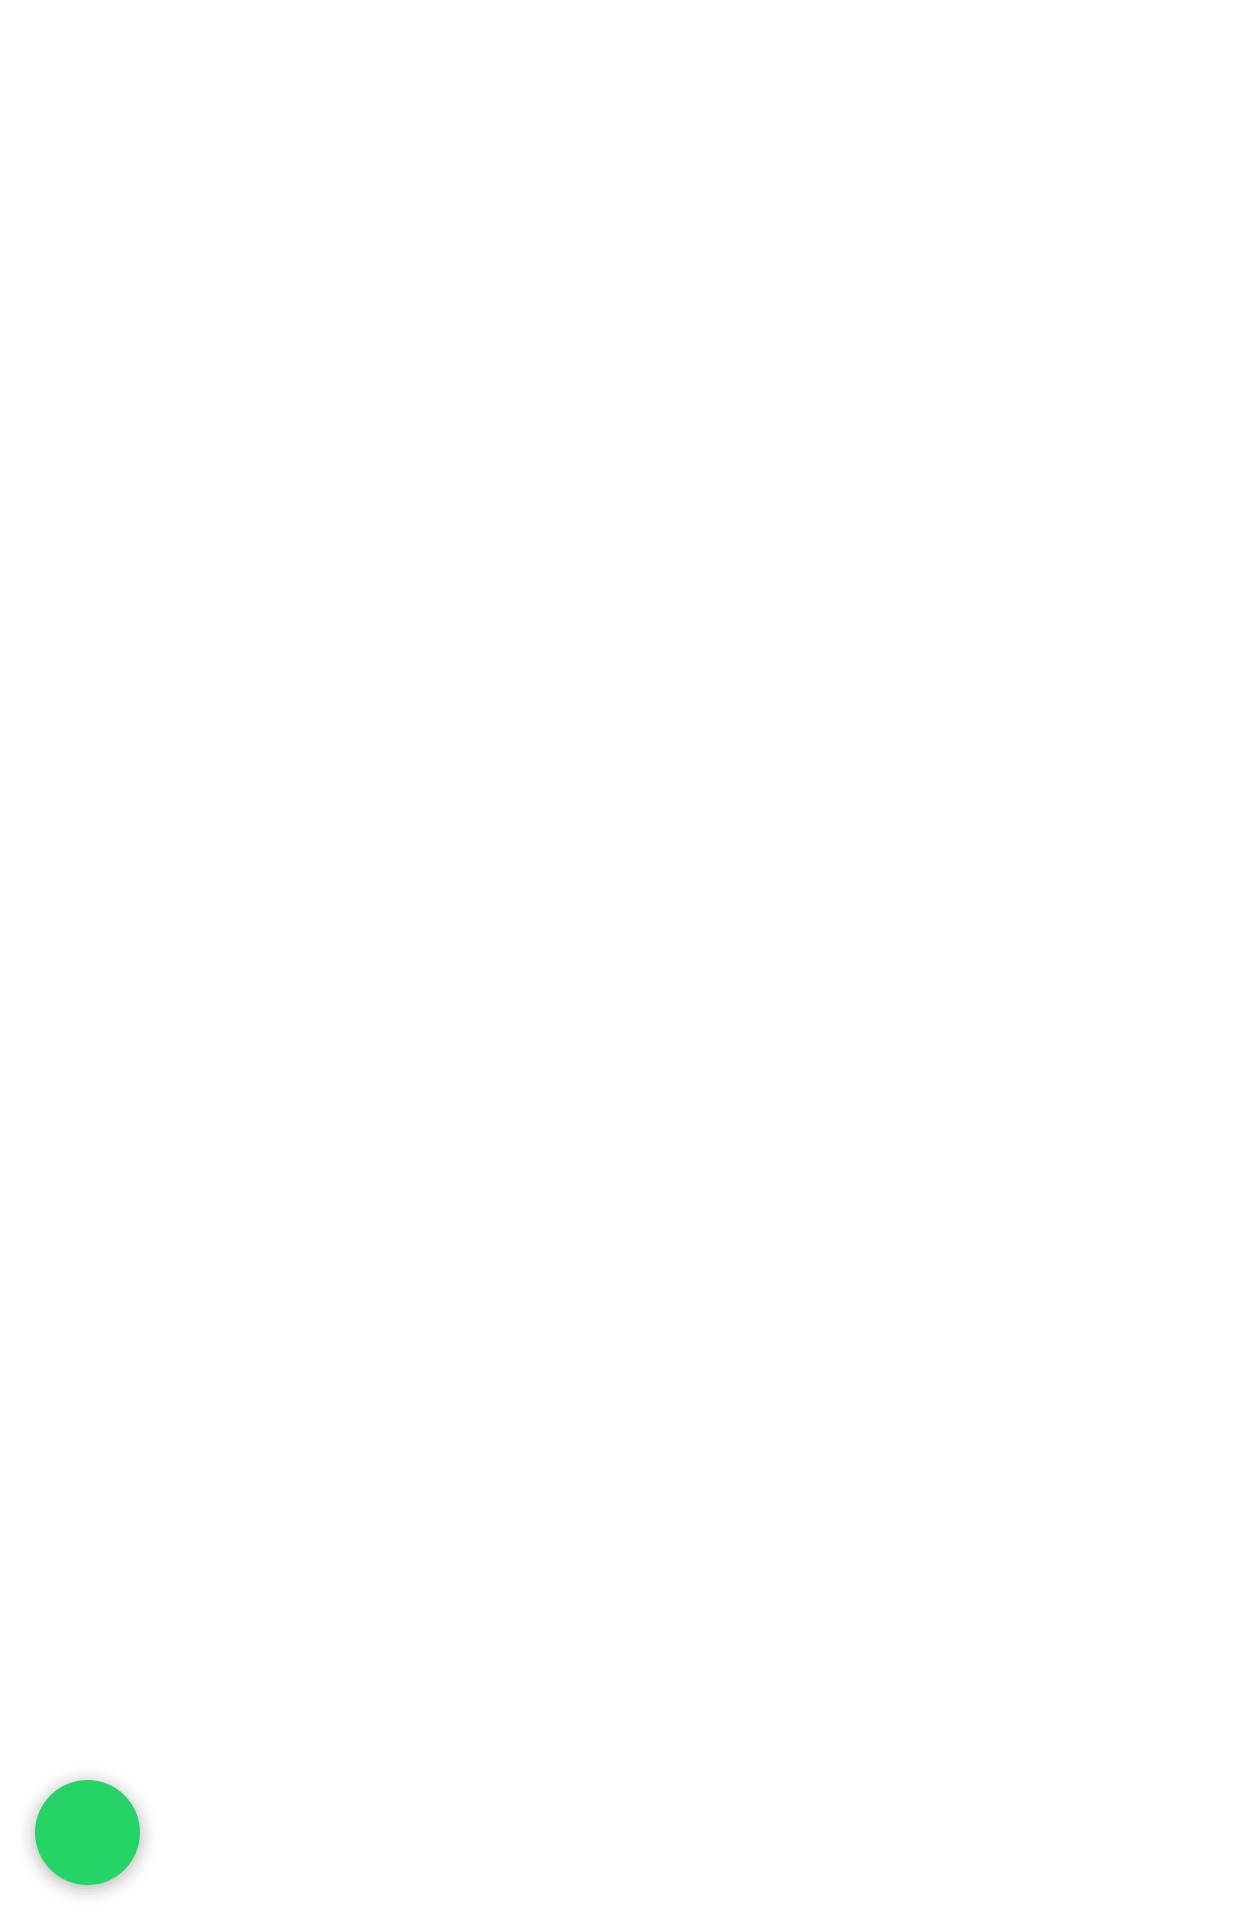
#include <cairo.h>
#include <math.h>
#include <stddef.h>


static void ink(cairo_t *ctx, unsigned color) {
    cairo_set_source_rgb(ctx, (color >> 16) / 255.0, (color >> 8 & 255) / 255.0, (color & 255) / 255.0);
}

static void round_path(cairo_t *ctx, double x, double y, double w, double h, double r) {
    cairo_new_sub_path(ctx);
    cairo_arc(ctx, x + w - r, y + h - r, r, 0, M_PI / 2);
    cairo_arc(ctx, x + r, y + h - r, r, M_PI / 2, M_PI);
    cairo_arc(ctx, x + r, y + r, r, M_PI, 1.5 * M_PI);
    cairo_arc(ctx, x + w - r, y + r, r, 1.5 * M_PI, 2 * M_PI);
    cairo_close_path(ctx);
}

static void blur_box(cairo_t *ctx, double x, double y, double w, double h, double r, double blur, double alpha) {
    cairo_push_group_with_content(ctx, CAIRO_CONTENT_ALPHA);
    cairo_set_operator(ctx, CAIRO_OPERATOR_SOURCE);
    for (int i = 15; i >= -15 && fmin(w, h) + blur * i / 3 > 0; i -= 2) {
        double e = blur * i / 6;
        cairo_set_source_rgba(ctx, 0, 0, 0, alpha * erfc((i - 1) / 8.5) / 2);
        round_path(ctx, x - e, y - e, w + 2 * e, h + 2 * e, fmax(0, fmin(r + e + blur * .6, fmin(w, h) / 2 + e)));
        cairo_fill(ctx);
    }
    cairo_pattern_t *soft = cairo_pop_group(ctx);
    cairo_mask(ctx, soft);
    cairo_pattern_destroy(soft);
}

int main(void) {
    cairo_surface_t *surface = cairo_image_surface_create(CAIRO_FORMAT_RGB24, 1260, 1919);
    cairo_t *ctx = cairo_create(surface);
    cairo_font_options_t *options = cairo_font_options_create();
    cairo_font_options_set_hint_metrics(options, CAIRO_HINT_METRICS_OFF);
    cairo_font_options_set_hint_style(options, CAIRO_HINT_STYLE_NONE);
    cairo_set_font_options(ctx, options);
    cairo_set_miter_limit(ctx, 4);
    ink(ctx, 0xFFFFFF);
    cairo_paint(ctx);
    ink(ctx, 0x000000);
    blur_box(ctx, 35, 1783, 105, 105, 52.5, 9, 0.3);
    ink(ctx, 0x25D366);
    cairo_arc(ctx, 87.5, 1832.5, 52.5, 0, 2 * M_PI);
    cairo_fill(ctx);
    cairo_surface_write_to_png(surface, "image.png");
    cairo_font_options_destroy(options);
    cairo_destroy(ctx);
    cairo_surface_destroy(surface);
    return 0;
}
